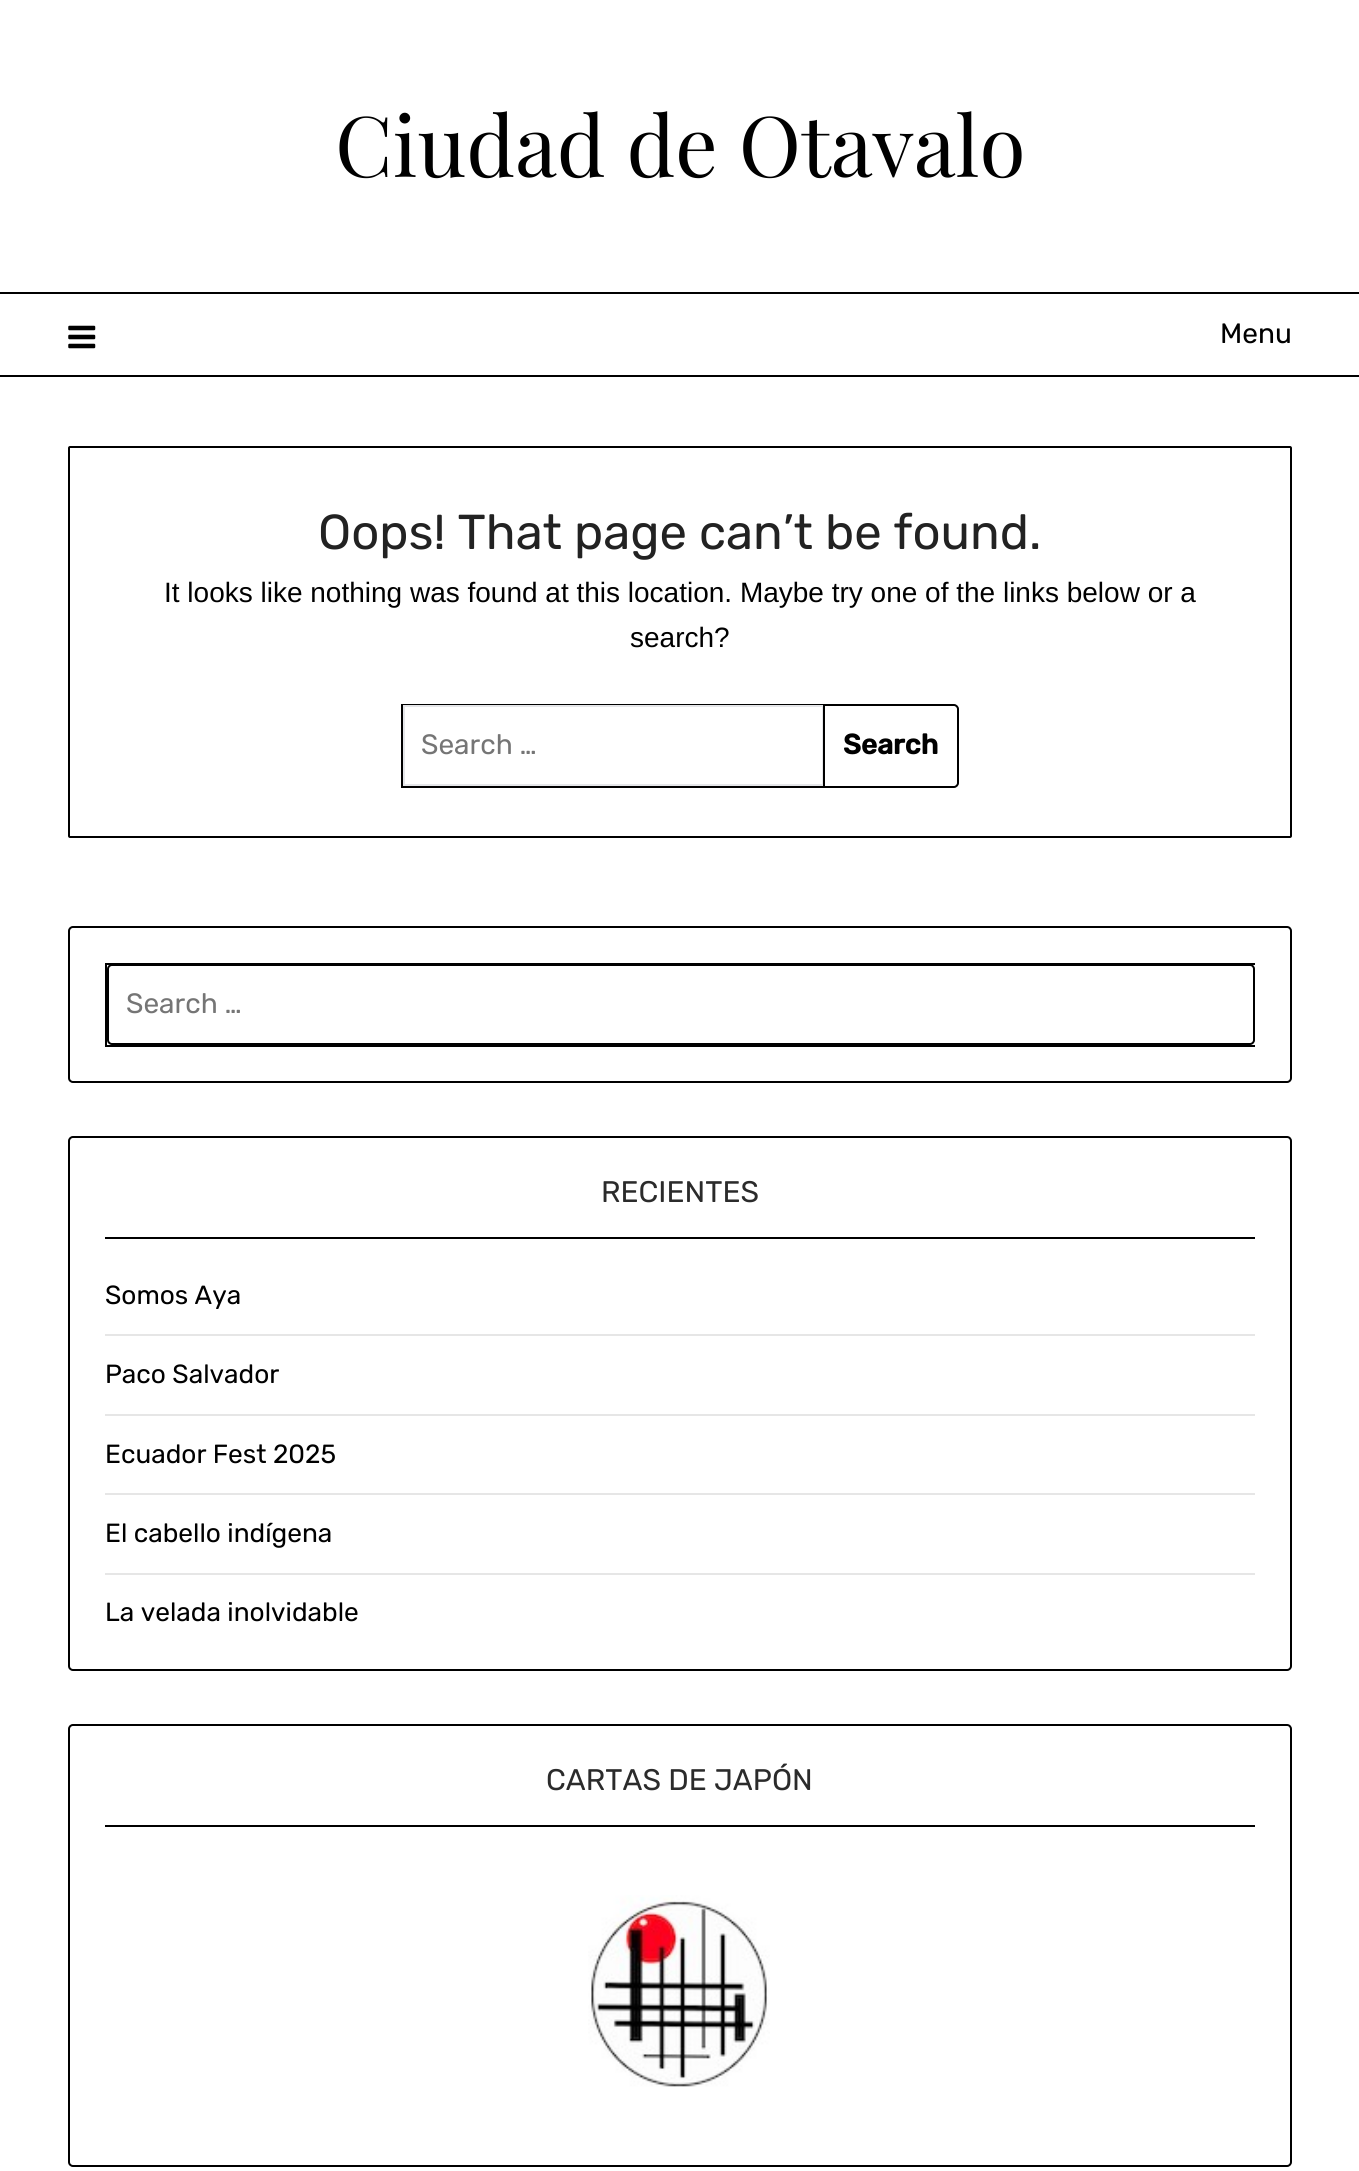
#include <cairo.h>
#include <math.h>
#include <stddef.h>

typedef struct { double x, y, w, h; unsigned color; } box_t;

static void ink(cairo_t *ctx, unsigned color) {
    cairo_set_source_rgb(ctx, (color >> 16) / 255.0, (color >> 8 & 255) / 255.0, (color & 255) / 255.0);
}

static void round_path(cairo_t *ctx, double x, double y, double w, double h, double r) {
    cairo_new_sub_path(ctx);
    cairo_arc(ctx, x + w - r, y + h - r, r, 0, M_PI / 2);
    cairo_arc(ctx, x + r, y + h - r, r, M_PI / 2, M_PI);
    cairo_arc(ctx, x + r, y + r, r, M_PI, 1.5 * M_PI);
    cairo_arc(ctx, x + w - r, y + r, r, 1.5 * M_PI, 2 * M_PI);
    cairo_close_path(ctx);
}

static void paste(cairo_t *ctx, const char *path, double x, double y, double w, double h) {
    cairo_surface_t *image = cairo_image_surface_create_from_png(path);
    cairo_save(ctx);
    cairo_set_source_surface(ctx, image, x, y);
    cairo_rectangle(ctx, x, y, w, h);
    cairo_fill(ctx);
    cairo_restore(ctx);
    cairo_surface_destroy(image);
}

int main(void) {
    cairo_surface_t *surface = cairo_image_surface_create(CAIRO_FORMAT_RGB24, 1359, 2171);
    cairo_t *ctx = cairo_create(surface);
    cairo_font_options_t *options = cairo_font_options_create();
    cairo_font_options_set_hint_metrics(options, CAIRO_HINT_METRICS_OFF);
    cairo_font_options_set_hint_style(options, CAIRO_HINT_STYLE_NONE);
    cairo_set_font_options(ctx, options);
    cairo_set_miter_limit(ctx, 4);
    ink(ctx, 0xFFFFFF);
    cairo_paint(ctx);
    cairo_select_font_face(ctx, "Playfair Display", CAIRO_FONT_SLANT_NORMAL, CAIRO_FONT_WEIGHT_NORMAL);
    cairo_set_font_size(ctx, 84);
    ink(ctx, 0x000000);
    cairo_move_to(ctx, 335, 177);
    cairo_show_text(ctx, "Ciudad de Otavalo");
    cairo_rectangle(ctx, 0, 292, 1359, 2);
    cairo_fill(ctx);
    cairo_rectangle(ctx, 0, 375, 1359, 2);
    cairo_fill(ctx);
    paste(ctx, "media/1.png", 68, 325, 28, 24);
    cairo_select_font_face(ctx, "Rubik", CAIRO_FONT_SLANT_NORMAL, CAIRO_FONT_WEIGHT_NORMAL);
    cairo_set_font_size(ctx, 28);
    cairo_move_to(ctx, 1220, 343);
    cairo_show_text(ctx, "Menu");
    round_path(ctx, 69, 447, 1222, 390, 1);
    cairo_stroke(ctx);
    cairo_set_font_size(ctx, 49);
    ink(ctx, 0x222222);
    cairo_move_to(ctx, 318, 549);
    cairo_show_text(ctx, "Oops! That page can’t be found.");
    cairo_select_font_face(ctx, "Liberation Sans", CAIRO_FONT_SLANT_NORMAL, CAIRO_FONT_WEIGHT_NORMAL);
    cairo_set_font_size(ctx, 28);
    ink(ctx, 0x000000);
    cairo_move_to(ctx, 164, 602);
    cairo_show_text(ctx, "It looks like nothing was found at this location. Maybe try one of the links below or a");
    cairo_move_to(ctx, 630, 647);
    cairo_show_text(ctx, "search?");
    {
        static const box_t items[] = {
            {401, 704, 423, 1, 0x000000},
            {401, 786, 423, 2, 0x000000},
            {401, 704, 2, 84, 0x000000},
        };
        for (size_t i = 0; i < sizeof items / sizeof *items; i++) {
            ink(ctx, items[i].color);
            cairo_rectangle(ctx, items[i].x, items[i].y, items[i].w, items[i].h);
            cairo_fill(ctx);
        }
    }
    cairo_rectangle(ctx, 404, 706, 419, 79);
    ink(ctx, 0xE5E6E9);
    cairo_stroke(ctx);
    cairo_select_font_face(ctx, "Rubik", CAIRO_FONT_SLANT_NORMAL, CAIRO_FONT_WEIGHT_NORMAL);
    ink(ctx, 0x757575);
    cairo_move_to(ctx, 421, 754);
    cairo_show_text(ctx, "Search …");
    cairo_new_path(ctx);
    cairo_move_to(ctx, 824, 705);
    cairo_line_to(ctx, 954, 705);
    cairo_curve_to(ctx, 956, 705, 958, 707, 958, 709);
    cairo_line_to(ctx, 958, 783);
    cairo_curve_to(ctx, 958, 785, 956, 787, 954, 787);
    cairo_line_to(ctx, 824, 787);
    cairo_close_path(ctx);
    ink(ctx, 0x000000);
    cairo_stroke(ctx);
    cairo_select_font_face(ctx, "Rubik", CAIRO_FONT_SLANT_NORMAL, CAIRO_FONT_WEIGHT_BOLD);
    cairo_move_to(ctx, 843, 754);
    cairo_show_text(ctx, "Search");
    round_path(ctx, 69, 927, 1222, 155, 4);
    cairo_stroke(ctx);
    {
        static const box_t items[] = {
            {105, 963, 1150, 2, 0x000000},
            {105, 1045, 1150, 2, 0x000000},
            {105, 963, 2, 84, 0x000000},
        };
        for (size_t i = 0; i < sizeof items / sizeof *items; i++) {
            ink(ctx, items[i].color);
            cairo_rectangle(ctx, items[i].x, items[i].y, items[i].w, items[i].h);
            cairo_fill(ctx);
        }
    }
    round_path(ctx, 108, 965, 1146, 79, 4);
    cairo_stroke(ctx);
    cairo_select_font_face(ctx, "Rubik", CAIRO_FONT_SLANT_NORMAL, CAIRO_FONT_WEIGHT_NORMAL);
    ink(ctx, 0x757575);
    cairo_move_to(ctx, 126, 1013);
    cairo_show_text(ctx, "Search …");
    round_path(ctx, 69, 1137, 1222, 533, 4);
    ink(ctx, 0x000000);
    cairo_stroke(ctx);
    cairo_rectangle(ctx, 105, 1237, 1150, 2);
    cairo_fill(ctx);
    cairo_set_font_size(ctx, 29.75);
    ink(ctx, 0x2B2B2B);
    cairo_move_to(ctx, 601, 1202);
    cairo_show_text(ctx, "RECIENTES");
    ink(ctx, 0xE6E6E6);
    cairo_rectangle(ctx, 105, 1334, 1150, 2);
    cairo_fill(ctx);
    cairo_set_font_size(ctx, 26.25);
    ink(ctx, 0x000000);
    cairo_move_to(ctx, 105, 1304);
    cairo_show_text(ctx, "Somos Aya");
    ink(ctx, 0xE6E6E6);
    cairo_rectangle(ctx, 105, 1414, 1150, 2);
    cairo_fill(ctx);
    ink(ctx, 0x000000);
    cairo_move_to(ctx, 105, 1383);
    cairo_show_text(ctx, "Paco Salvador");
    ink(ctx, 0xE6E6E6);
    cairo_rectangle(ctx, 105, 1493, 1150, 2);
    cairo_fill(ctx);
    ink(ctx, 0x000000);
    cairo_move_to(ctx, 105, 1463);
    cairo_show_text(ctx, "Ecuador Fest 2025");
    ink(ctx, 0xE6E6E6);
    cairo_rectangle(ctx, 105, 1573, 1150, 2);
    cairo_fill(ctx);
    ink(ctx, 0x000000);
    cairo_move_to(ctx, 105, 1542);
    cairo_show_text(ctx, "El cabello indígena");
    cairo_move_to(ctx, 105, 1621);
    cairo_show_text(ctx, "La velada inolvidable");
    round_path(ctx, 69, 1725, 1222, 441, 4);
    cairo_stroke(ctx);
    cairo_rectangle(ctx, 105, 1825, 1150, 2);
    cairo_fill(ctx);
    cairo_set_font_size(ctx, 29.75);
    ink(ctx, 0x2B2B2B);
    cairo_move_to(ctx, 546, 1790);
    cairo_show_text(ctx, "CARTAS DE JAPÓN");
    paste(ctx, "media/2.png", 588, 1895, 182, 192);
    cairo_surface_write_to_png(surface, "image.png");
    cairo_font_options_destroy(options);
    cairo_destroy(ctx);
    cairo_surface_destroy(surface);
    return 0;
}
